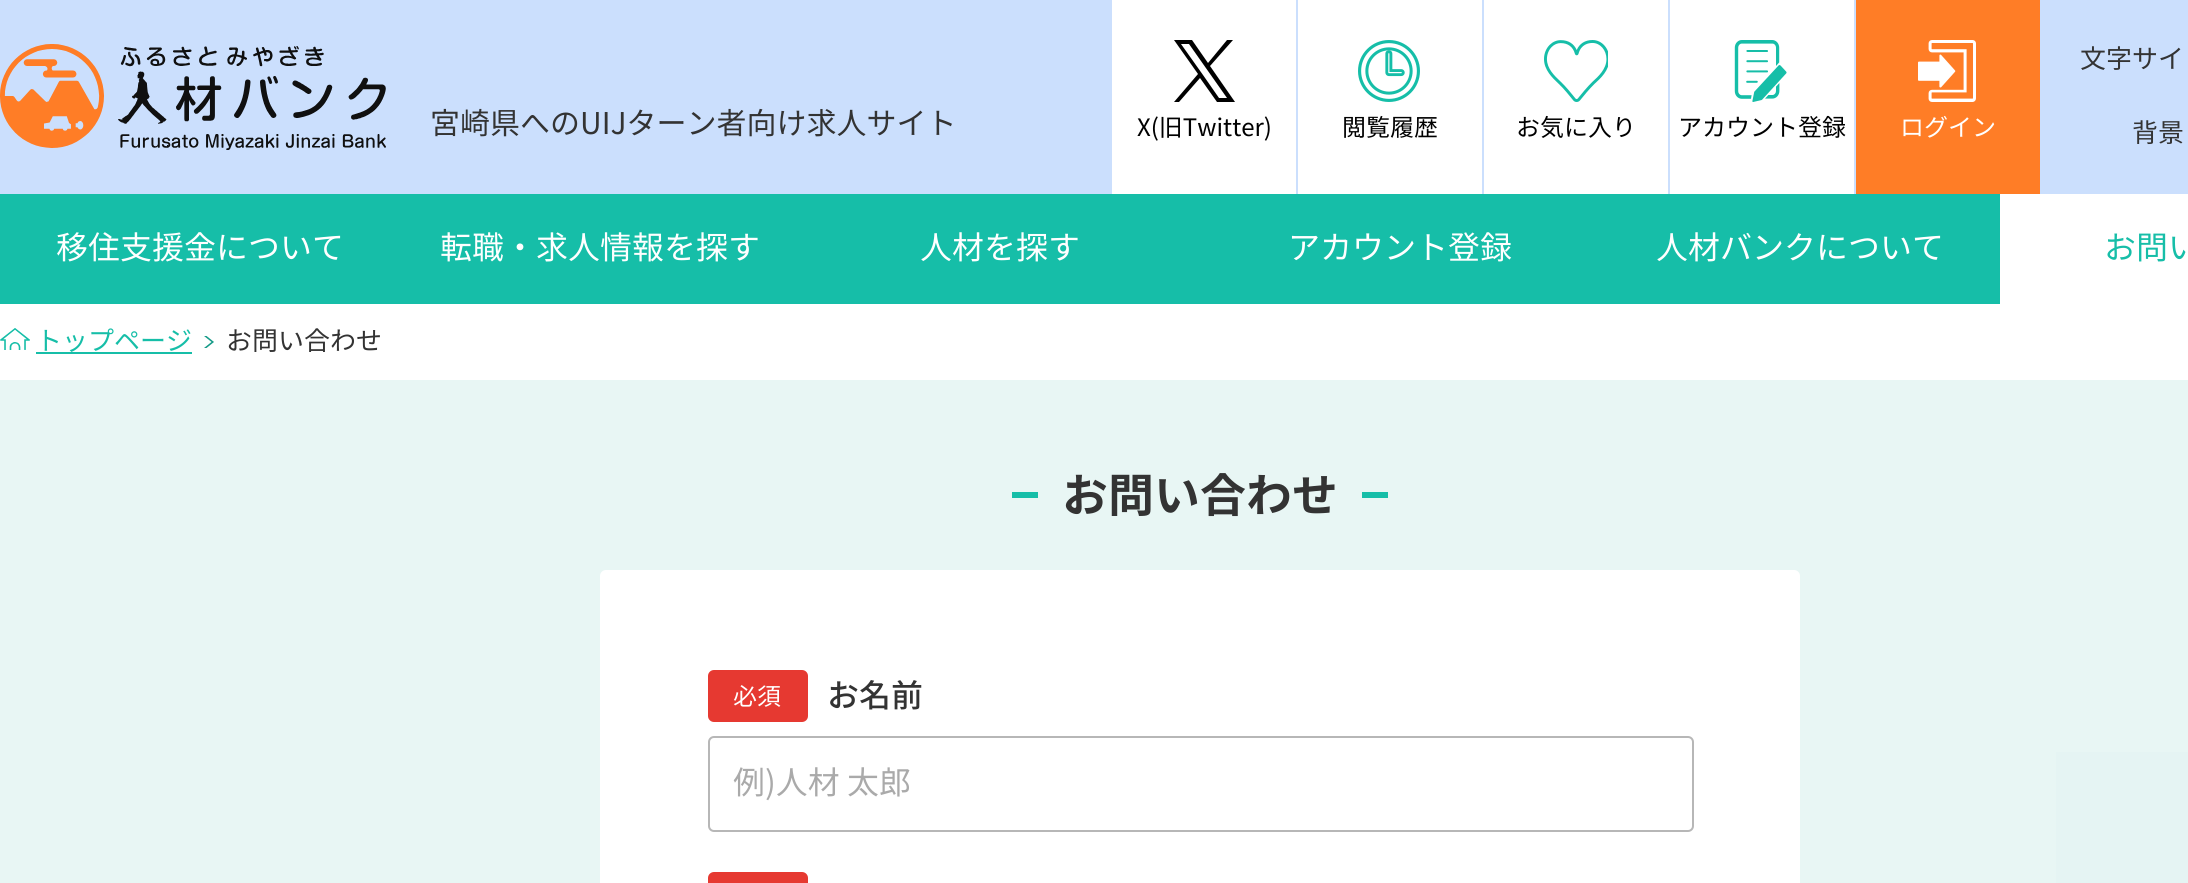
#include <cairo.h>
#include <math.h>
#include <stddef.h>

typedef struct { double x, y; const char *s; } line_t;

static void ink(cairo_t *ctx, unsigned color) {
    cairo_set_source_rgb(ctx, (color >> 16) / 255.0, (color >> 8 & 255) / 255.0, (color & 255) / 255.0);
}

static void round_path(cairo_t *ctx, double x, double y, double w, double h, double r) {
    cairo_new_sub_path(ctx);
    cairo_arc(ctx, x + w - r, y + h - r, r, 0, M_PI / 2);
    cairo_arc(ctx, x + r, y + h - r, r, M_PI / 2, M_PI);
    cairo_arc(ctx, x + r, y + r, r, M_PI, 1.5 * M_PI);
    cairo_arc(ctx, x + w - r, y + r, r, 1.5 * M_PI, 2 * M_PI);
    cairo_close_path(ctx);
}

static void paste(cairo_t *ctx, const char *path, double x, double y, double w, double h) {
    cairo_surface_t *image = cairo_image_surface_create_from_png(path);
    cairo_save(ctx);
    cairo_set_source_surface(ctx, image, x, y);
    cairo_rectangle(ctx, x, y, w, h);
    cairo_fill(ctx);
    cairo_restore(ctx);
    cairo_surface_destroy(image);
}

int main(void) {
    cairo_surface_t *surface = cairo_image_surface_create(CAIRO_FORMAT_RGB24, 2188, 883);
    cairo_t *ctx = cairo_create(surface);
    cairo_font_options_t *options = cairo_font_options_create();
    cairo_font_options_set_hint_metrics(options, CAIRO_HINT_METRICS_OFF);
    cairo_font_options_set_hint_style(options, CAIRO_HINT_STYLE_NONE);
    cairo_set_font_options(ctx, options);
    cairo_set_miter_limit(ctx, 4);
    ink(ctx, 0xE8F6F4);
    cairo_paint(ctx);
    ink(ctx, 0xCBDFFD);
    cairo_rectangle(ctx, 0, 0, 2188, 194);
    cairo_fill(ctx);
    paste(ctx, "media/1.png", 0, 44, 386, 106);
    cairo_select_font_face(ctx, "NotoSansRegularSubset", CAIRO_FONT_SLANT_NORMAL, CAIRO_FONT_WEIGHT_NORMAL);
    cairo_set_font_size(ctx, 30);
    ink(ctx, 0x333333);
    cairo_move_to(ctx, 430, 134);
    cairo_show_text(ctx, "宮崎県へのUIJターン者向け求人サイト");
    ink(ctx, 0xFFFFFF);
    cairo_rectangle(ctx, 1112, 0, 184, 194);
    cairo_fill(ctx);
    ink(ctx, 0x000000);
    cairo_new_path(ctx);
    cairo_move_to(ctx, 1210, 66);
    cairo_line_to(ctx, 1233, 40);
    cairo_line_to(ctx, 1227, 40);
    cairo_line_to(ctx, 1208, 63);
    cairo_line_to(ctx, 1192, 40);
    cairo_line_to(ctx, 1174, 40);
    cairo_line_to(ctx, 1198, 74);
    cairo_line_to(ctx, 1174, 102);
    cairo_line_to(ctx, 1179, 102);
    cairo_line_to(ctx, 1200, 78);
    cairo_line_to(ctx, 1217, 102);
    cairo_line_to(ctx, 1235, 102);
    cairo_close_path(ctx);
    cairo_move_to(ctx, 1203, 75);
    cairo_line_to(ctx, 1181, 44);
    cairo_line_to(ctx, 1189, 44);
    cairo_line_to(ctx, 1227, 98);
    cairo_line_to(ctx, 1219, 98);
    cairo_close_path(ctx);
    cairo_fill(ctx);
    cairo_set_font_size(ctx, 24);
    cairo_move_to(ctx, 1137, 136);
    cairo_show_text(ctx, "X(旧Twitter)");
    ink(ctx, 0xFFFFFF);
    cairo_rectangle(ctx, 1298, 0, 184, 194);
    cairo_fill(ctx);
    paste(ctx, "media/2.png", 1358, 40, 62, 62);
    ink(ctx, 0x000000);
    cairo_move_to(ctx, 1342, 136);
    cairo_show_text(ctx, "閲覧履歴");
    ink(ctx, 0xFFFFFF);
    cairo_rectangle(ctx, 1484, 0, 184, 194);
    cairo_fill(ctx);
    paste(ctx, "media/3.png", 1544, 40, 64, 62);
    ink(ctx, 0x000000);
    cairo_move_to(ctx, 1516, 136);
    cairo_show_text(ctx, "お気に入り");
    ink(ctx, 0xFFFFFF);
    cairo_rectangle(ctx, 1670, 0, 184, 194);
    cairo_fill(ctx);
    paste(ctx, "media/4.png", 1734, 40, 53, 62);
    ink(ctx, 0x000000);
    cairo_move_to(ctx, 1678, 136);
    cairo_show_text(ctx, "アカウント登録");
    ink(ctx, 0xFF7D26);
    cairo_rectangle(ctx, 1856, 0, 184, 194);
    cairo_fill(ctx);
    paste(ctx, "media/5.png", 1918, 40, 58, 62);
    ink(ctx, 0xFFFFFF);
    cairo_move_to(ctx, 1900, 136);
    cairo_show_text(ctx, "ログイン");
    cairo_set_font_size(ctx, 26);
    ink(ctx, 0x333333);
    cairo_move_to(ctx, 2080, 68);
    cairo_show_text(ctx, "文字サイ");
    cairo_move_to(ctx, 2132, 142);
    cairo_show_text(ctx, "背景");
    ink(ctx, 0x16BEA8);
    cairo_rectangle(ctx, 0, 194, 2000, 110);
    cairo_fill(ctx);
    cairo_set_font_size(ctx, 32);
    ink(ctx, 0xFFFFFF);
    {
        static const line_t items[] = {
            {56, 259, "移住支援金について"},
            {440, 259, "転職・求人情報を探す"},
            {920, 259, "人材を探す"},
            {1288, 259, "アカウント登録"},
            {1656, 259, "人材バンクについて"},
        };
        for (size_t i = 0; i < sizeof items / sizeof *items; i++) {
            cairo_move_to(ctx, items[i].x, items[i].y);
            cairo_show_text(ctx, items[i].s);
        }
    }
    cairo_rectangle(ctx, 2000, 194, 188, 110);
    cairo_fill(ctx);
    ink(ctx, 0x16BEA8);
    cairo_move_to(ctx, 2104, 259);
    cairo_show_text(ctx, "お問い");
    ink(ctx, 0xFFFFFF);
    cairo_rectangle(ctx, 0, 304, 2188, 76);
    cairo_fill(ctx);
    paste(ctx, "media/6.png", 0, 328, 30, 22);
    cairo_set_font_size(ctx, 26);
    ink(ctx, 0x16BEA8);
    cairo_move_to(ctx, 36, 350);
    cairo_show_text(ctx, "トップページ");
    cairo_rectangle(ctx, 36, 352, 156, 2);
    cairo_fill(ctx);
    paste(ctx, "media/7.png", 204, 336, 10, 12);
    ink(ctx, 0x333333);
    cairo_move_to(ctx, 226, 350);
    cairo_show_text(ctx, "お問い合わせ");
    ink(ctx, 0x16BEA8);
    cairo_rectangle(ctx, 1012, 492, 26, 6);
    cairo_fill(ctx);
    cairo_select_font_face(ctx, "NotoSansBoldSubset", CAIRO_FONT_SLANT_NORMAL, CAIRO_FONT_WEIGHT_BOLD);
    cairo_set_font_size(ctx, 46);
    ink(ctx, 0x333333);
    cairo_move_to(ctx, 1062, 512);
    cairo_show_text(ctx, "お問い合わせ");
    ink(ctx, 0x16BEA8);
    cairo_rectangle(ctx, 1362, 492, 26, 6);
    cairo_fill(ctx);
    ink(ctx, 0xFFFFFF);
    round_path(ctx, 600, 570, 1200, 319, 6);
    cairo_fill(ctx);
    ink(ctx, 0xE63931);
    round_path(ctx, 708, 670, 100, 52, 6);
    cairo_fill(ctx);
    cairo_select_font_face(ctx, "NotoSansRegularSubset", CAIRO_FONT_SLANT_NORMAL, CAIRO_FONT_WEIGHT_NORMAL);
    cairo_set_font_size(ctx, 24);
    ink(ctx, 0xFFFFFF);
    cairo_move_to(ctx, 733, 705);
    cairo_show_text(ctx, "必須");
    cairo_select_font_face(ctx, "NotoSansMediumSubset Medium", CAIRO_FONT_SLANT_NORMAL, CAIRO_FONT_WEIGHT_NORMAL);
    cairo_set_font_size(ctx, 32);
    ink(ctx, 0x333333);
    cairo_move_to(ctx, 827, 707);
    cairo_show_text(ctx, "お名前");
    round_path(ctx, 709, 737, 984, 94, 5);
    ink(ctx, 0xB7B7B7);
    cairo_stroke(ctx);
    cairo_select_font_face(ctx, "NotoSansRegularSubset", CAIRO_FONT_SLANT_NORMAL, CAIRO_FONT_WEIGHT_NORMAL);
    ink(ctx, 0xAAAAAA);
    cairo_move_to(ctx, 733, 794);
    cairo_show_text(ctx, "例)人材 太郎");
    ink(ctx, 0xE63931);
    round_path(ctx, 708, 872, 100, 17, 6);
    cairo_fill(ctx);
    ink(ctx, 0xE5F4F3);
    cairo_rectangle(ctx, 2056, 752, 132, 131);
    cairo_fill(ctx);
    cairo_surface_write_to_png(surface, "image.png");
    cairo_font_options_destroy(options);
    cairo_destroy(ctx);
    cairo_surface_destroy(surface);
    return 0;
}
